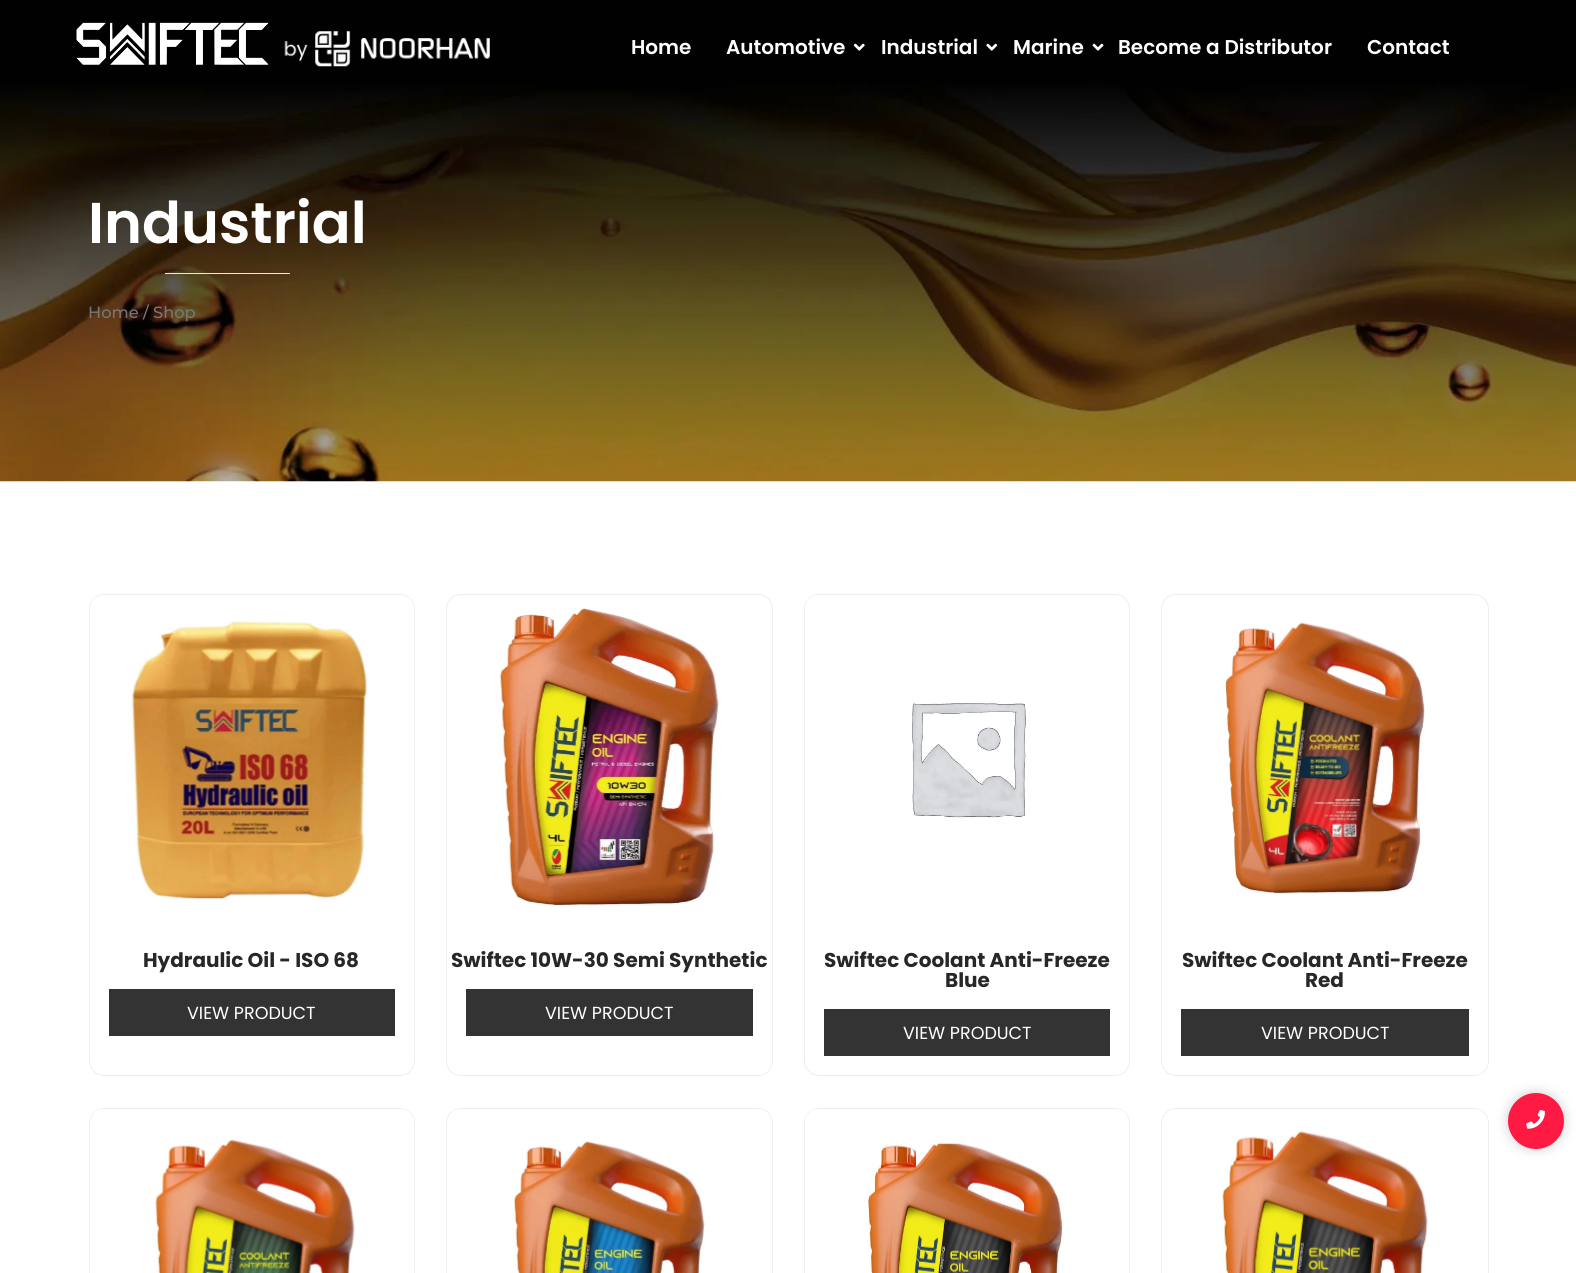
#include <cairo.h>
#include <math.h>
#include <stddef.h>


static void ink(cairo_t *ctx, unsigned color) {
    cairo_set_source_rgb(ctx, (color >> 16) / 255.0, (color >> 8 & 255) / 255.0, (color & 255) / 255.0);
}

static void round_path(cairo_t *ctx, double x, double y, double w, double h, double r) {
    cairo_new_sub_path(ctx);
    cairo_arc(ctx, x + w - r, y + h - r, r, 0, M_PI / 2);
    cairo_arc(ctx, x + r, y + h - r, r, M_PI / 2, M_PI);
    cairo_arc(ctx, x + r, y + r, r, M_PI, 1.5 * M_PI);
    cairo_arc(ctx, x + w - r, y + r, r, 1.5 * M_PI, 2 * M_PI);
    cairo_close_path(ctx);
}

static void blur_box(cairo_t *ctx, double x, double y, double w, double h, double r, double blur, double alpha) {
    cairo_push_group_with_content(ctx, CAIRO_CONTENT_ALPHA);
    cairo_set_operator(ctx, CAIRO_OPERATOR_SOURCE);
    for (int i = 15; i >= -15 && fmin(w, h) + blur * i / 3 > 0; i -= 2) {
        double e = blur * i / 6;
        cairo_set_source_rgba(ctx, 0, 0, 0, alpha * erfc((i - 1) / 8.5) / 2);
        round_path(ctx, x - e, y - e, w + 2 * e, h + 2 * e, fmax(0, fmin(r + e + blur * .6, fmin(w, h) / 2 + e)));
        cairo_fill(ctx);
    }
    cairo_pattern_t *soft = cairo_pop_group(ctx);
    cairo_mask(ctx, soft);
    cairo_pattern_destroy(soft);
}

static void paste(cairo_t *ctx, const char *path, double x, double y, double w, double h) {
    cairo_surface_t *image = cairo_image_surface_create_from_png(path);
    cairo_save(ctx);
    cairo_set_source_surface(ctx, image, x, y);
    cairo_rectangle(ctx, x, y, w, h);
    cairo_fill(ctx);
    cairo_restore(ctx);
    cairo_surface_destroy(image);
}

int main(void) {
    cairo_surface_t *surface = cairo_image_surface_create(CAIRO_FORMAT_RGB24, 1576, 1273);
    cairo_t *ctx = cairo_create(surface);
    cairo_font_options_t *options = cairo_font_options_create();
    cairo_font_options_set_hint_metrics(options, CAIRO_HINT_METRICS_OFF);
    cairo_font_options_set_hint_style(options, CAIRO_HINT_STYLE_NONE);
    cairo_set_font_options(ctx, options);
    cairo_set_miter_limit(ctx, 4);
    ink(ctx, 0xFFFFFF);
    cairo_paint(ctx);
    paste(ctx, "media/6.png", 0, 0, 1576, 482);
    paste(ctx, "media/1.png", 76, 22, 193, 43);
    paste(ctx, "media/2.png", 284, 31, 206, 36);
    cairo_select_font_face(ctx, "Poppins SemiBold", CAIRO_FONT_SLANT_NORMAL, CAIRO_FONT_WEIGHT_NORMAL);
    cairo_set_font_size(ctx, 20);
    ink(ctx, 0xFFFFFF);
    cairo_move_to(ctx, 631, 54);
    cairo_show_text(ctx, "Home");
    cairo_move_to(ctx, 726, 54);
    cairo_show_text(ctx, "Automotive");
    paste(ctx, "media/3.png", 853, 43, 12, 8);
    cairo_move_to(ctx, 881, 54);
    cairo_show_text(ctx, "Industrial");
    paste(ctx, "media/4.png", 986, 43, 12, 8);
    cairo_move_to(ctx, 1013, 54);
    cairo_show_text(ctx, "Marine");
    paste(ctx, "media/5.png", 1092, 43, 12, 8);
    cairo_move_to(ctx, 1118, 54);
    cairo_show_text(ctx, "Become a Distributor");
    cairo_move_to(ctx, 1367, 54);
    cairo_show_text(ctx, "Contact");
    cairo_set_font_size(ctx, 57.5);
    cairo_move_to(ctx, 88, 243);
    cairo_show_text(ctx, "Industrial");
    ink(ctx, 0xE8E8E8);
    cairo_rectangle(ctx, 165, 273, 125, 1);
    cairo_fill(ctx);
    cairo_select_font_face(ctx, "Montserrat Medium", CAIRO_FONT_SLANT_NORMAL, CAIRO_FONT_WEIGHT_NORMAL);
    cairo_set_font_size(ctx, 16.25);
    ink(ctx, 0x777777);
    cairo_move_to(ctx, 88, 318);
    cairo_show_text(ctx, "Home / Shop");
    round_path(ctx, 89.5, 594.5, 325, 481, 14.5);
    ink(ctx, 0xEEEEEE);
    cairo_set_line_width(ctx, 1);
    cairo_stroke(ctx);
    paste(ctx, "media/7.png", 91, 595, 322, 304);
    cairo_select_font_face(ctx, "Poppins", CAIRO_FONT_SLANT_NORMAL, CAIRO_FONT_WEIGHT_BOLD);
    cairo_set_font_size(ctx, 20);
    ink(ctx, 0x272727);
    cairo_move_to(ctx, 143, 967);
    cairo_show_text(ctx, "Hydraulic Oil - ISO 68");
    ink(ctx, 0x333333);
    cairo_rectangle(ctx, 109, 989, 286, 47);
    cairo_fill(ctx);
    cairo_select_font_face(ctx, "Poppins", CAIRO_FONT_SLANT_NORMAL, CAIRO_FONT_WEIGHT_NORMAL);
    cairo_set_font_size(ctx, 17.5);
    ink(ctx, 0xFFFFFF);
    cairo_move_to(ctx, 187, 1019);
    cairo_show_text(ctx, "VIEW PRODUCT");
    round_path(ctx, 446.5, 594.5, 326, 481, 14.5);
    ink(ctx, 0xEEEEEE);
    cairo_stroke(ctx);
    paste(ctx, "media/8.png", 499, 608, 220, 298);
    cairo_select_font_face(ctx, "Poppins", CAIRO_FONT_SLANT_NORMAL, CAIRO_FONT_WEIGHT_BOLD);
    cairo_set_font_size(ctx, 20);
    ink(ctx, 0x272727);
    cairo_move_to(ctx, 451, 967);
    cairo_show_text(ctx, "Swiftec 10W-30 Semi Synthetic");
    ink(ctx, 0x333333);
    cairo_rectangle(ctx, 466, 989, 287, 47);
    cairo_fill(ctx);
    cairo_select_font_face(ctx, "Poppins", CAIRO_FONT_SLANT_NORMAL, CAIRO_FONT_WEIGHT_NORMAL);
    cairo_set_font_size(ctx, 17.5);
    ink(ctx, 0xFFFFFF);
    cairo_move_to(ctx, 545, 1019);
    cairo_show_text(ctx, "VIEW PRODUCT");
    round_path(ctx, 804.5, 594.5, 325, 481, 14.5);
    ink(ctx, 0xEEEEEE);
    cairo_stroke(ctx);
    paste(ctx, "media/9.png", 805, 595, 314, 223);
    cairo_select_font_face(ctx, "Poppins", CAIRO_FONT_SLANT_NORMAL, CAIRO_FONT_WEIGHT_BOLD);
    cairo_set_font_size(ctx, 20);
    ink(ctx, 0x272727);
    cairo_move_to(ctx, 824, 967);
    cairo_show_text(ctx, "Swiftec Coolant Anti-Freeze");
    cairo_move_to(ctx, 945, 987);
    cairo_show_text(ctx, "Blue");
    ink(ctx, 0x333333);
    cairo_rectangle(ctx, 824, 1009, 286, 47);
    cairo_fill(ctx);
    cairo_select_font_face(ctx, "Poppins", CAIRO_FONT_SLANT_NORMAL, CAIRO_FONT_WEIGHT_NORMAL);
    cairo_set_font_size(ctx, 17.5);
    ink(ctx, 0xFFFFFF);
    cairo_move_to(ctx, 903, 1039);
    cairo_show_text(ctx, "VIEW PRODUCT");
    round_path(ctx, 1161.5, 594.5, 327, 481, 14.5);
    ink(ctx, 0xEEEEEE);
    cairo_stroke(ctx);
    paste(ctx, "media/10.png", 1225, 622, 200, 272);
    cairo_select_font_face(ctx, "Poppins", CAIRO_FONT_SLANT_NORMAL, CAIRO_FONT_WEIGHT_BOLD);
    cairo_set_font_size(ctx, 20);
    ink(ctx, 0x272727);
    cairo_move_to(ctx, 1182, 967);
    cairo_show_text(ctx, "Swiftec Coolant Anti-Freeze");
    cairo_move_to(ctx, 1305, 987);
    cairo_show_text(ctx, "Red");
    ink(ctx, 0x333333);
    cairo_rectangle(ctx, 1181, 1009, 288, 47);
    cairo_fill(ctx);
    cairo_select_font_face(ctx, "Poppins", CAIRO_FONT_SLANT_NORMAL, CAIRO_FONT_WEIGHT_NORMAL);
    cairo_set_font_size(ctx, 17.5);
    ink(ctx, 0xFFFFFF);
    cairo_move_to(ctx, 1261, 1039);
    cairo_show_text(ctx, "VIEW PRODUCT");
    round_path(ctx, 89.5, 1108.5, 325, 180, 14.5);
    ink(ctx, 0xEEEEEE);
    cairo_stroke(ctx);
    paste(ctx, "media/11.png", 90, 1109, 324, 164);
    round_path(ctx, 446.5, 1108.5, 326, 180, 14.5);
    cairo_stroke(ctx);
    paste(ctx, "media/12.png", 452, 1109, 311, 164);
    round_path(ctx, 804.5, 1108.5, 325, 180, 14.5);
    cairo_stroke(ctx);
    paste(ctx, "media/13.png", 805, 1109, 321, 164);
    round_path(ctx, 1161.5, 1108.5, 327, 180, 14.5);
    cairo_stroke(ctx);
    paste(ctx, "media/14.png", 1167, 1109, 316, 164);
    ink(ctx, 0x000000);
    blur_box(ctx, 1508, 1093, 56, 56, 28, 6, 0.2);
    ink(ctx, 0xFF1A44);
    cairo_arc(ctx, 1536, 1121, 28, 0, 2 * M_PI);
    cairo_fill(ctx);
    paste(ctx, "media/15.png", 1526, 1110, 19, 19);
    cairo_surface_write_to_png(surface, "image.png");
    cairo_font_options_destroy(options);
    cairo_destroy(ctx);
    cairo_surface_destroy(surface);
    return 0;
}
